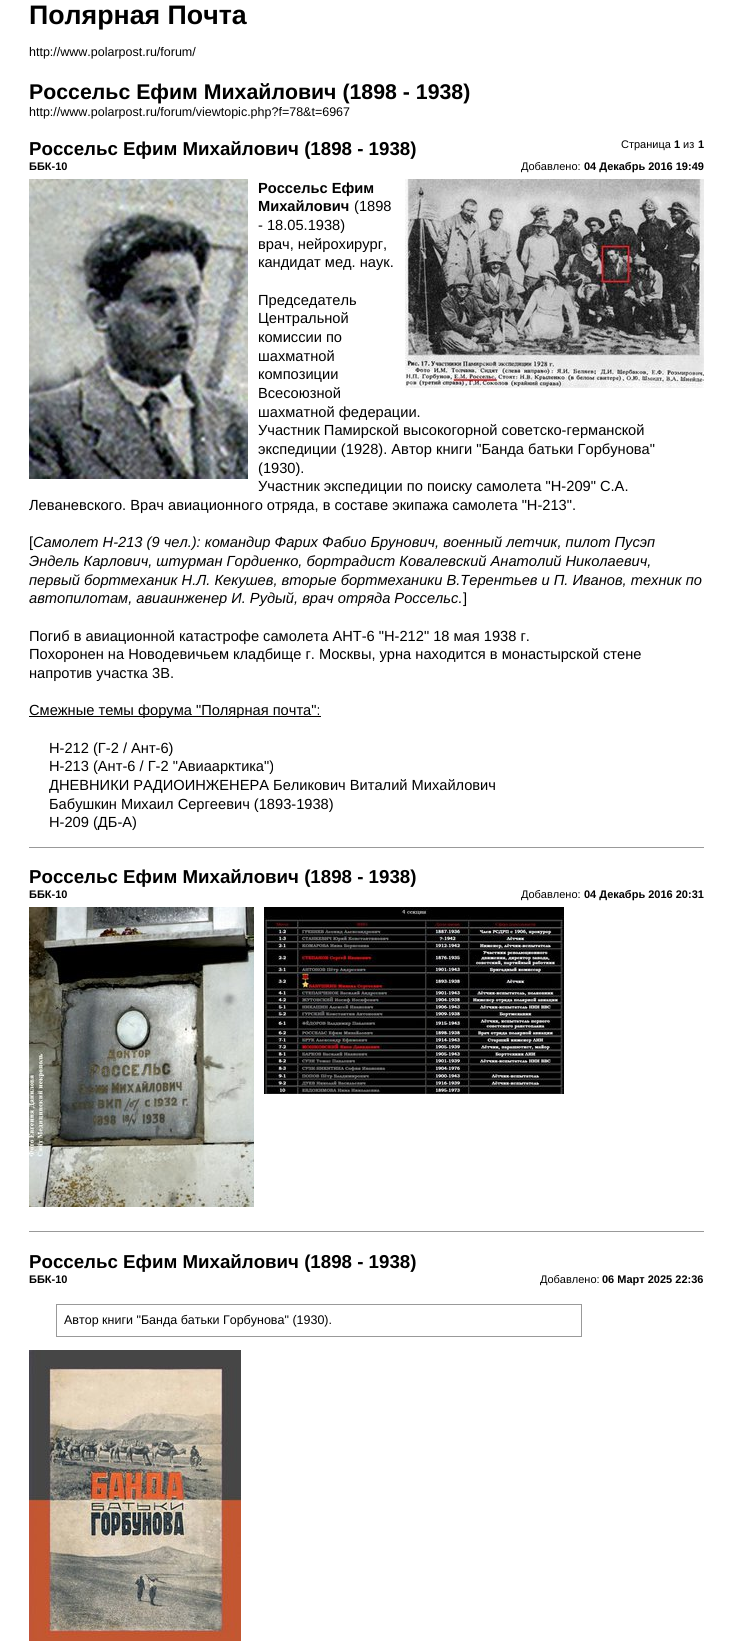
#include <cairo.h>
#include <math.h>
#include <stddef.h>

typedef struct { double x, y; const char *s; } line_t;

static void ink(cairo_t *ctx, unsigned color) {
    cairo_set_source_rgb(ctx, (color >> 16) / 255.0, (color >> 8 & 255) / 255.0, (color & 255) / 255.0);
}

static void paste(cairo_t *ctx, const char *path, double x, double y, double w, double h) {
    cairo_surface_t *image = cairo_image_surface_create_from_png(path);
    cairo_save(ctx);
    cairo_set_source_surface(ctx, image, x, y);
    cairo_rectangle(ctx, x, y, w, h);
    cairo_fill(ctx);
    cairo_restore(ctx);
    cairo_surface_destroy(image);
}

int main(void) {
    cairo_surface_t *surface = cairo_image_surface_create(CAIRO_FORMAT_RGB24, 733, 1641);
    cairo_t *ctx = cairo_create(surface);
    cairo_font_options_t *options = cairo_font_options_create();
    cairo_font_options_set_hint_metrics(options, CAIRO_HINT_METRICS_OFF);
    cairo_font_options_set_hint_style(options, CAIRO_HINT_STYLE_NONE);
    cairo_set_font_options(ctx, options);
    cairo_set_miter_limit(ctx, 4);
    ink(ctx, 0xFFFFFF);
    cairo_paint(ctx);
    cairo_select_font_face(ctx, "Liberation Sans", CAIRO_FONT_SLANT_NORMAL, CAIRO_FONT_WEIGHT_BOLD);
    cairo_set_font_size(ctx, 26.75);
    ink(ctx, 0x000000);
    cairo_move_to(ctx, 29, 24);
    cairo_show_text(ctx, "Полярная Почта");
    cairo_select_font_face(ctx, "Liberation Sans", CAIRO_FONT_SLANT_NORMAL, CAIRO_FONT_WEIGHT_NORMAL);
    cairo_set_font_size(ctx, 12.5);
    cairo_move_to(ctx, 29, 56);
    cairo_show_text(ctx, "http://www.polarpost.ru/forum/");
    cairo_select_font_face(ctx, "Liberation Sans", CAIRO_FONT_SLANT_NORMAL, CAIRO_FONT_WEIGHT_BOLD);
    cairo_set_font_size(ctx, 21.3);
    cairo_move_to(ctx, 29, 99);
    cairo_show_text(ctx, "Россельс Ефим Михайлович (1898 - 1938)");
    cairo_select_font_face(ctx, "Liberation Sans", CAIRO_FONT_SLANT_NORMAL, CAIRO_FONT_WEIGHT_NORMAL);
    cairo_set_font_size(ctx, 12.5);
    cairo_move_to(ctx, 29, 116);
    cairo_show_text(ctx, "http://www.polarpost.ru/forum/viewtopic.php?f=78&t=6967");
    cairo_set_font_size(ctx, 11);
    cairo_move_to(ctx, 621, 148);
    cairo_show_text(ctx, "Страница");
    cairo_select_font_face(ctx, "Liberation Sans", CAIRO_FONT_SLANT_NORMAL, CAIRO_FONT_WEIGHT_BOLD);
    cairo_move_to(ctx, 674, 148);
    cairo_show_text(ctx, "1");
    cairo_select_font_face(ctx, "Liberation Sans", CAIRO_FONT_SLANT_NORMAL, CAIRO_FONT_WEIGHT_NORMAL);
    cairo_move_to(ctx, 683, 148);
    cairo_show_text(ctx, "из");
    cairo_select_font_face(ctx, "Liberation Sans", CAIRO_FONT_SLANT_NORMAL, CAIRO_FONT_WEIGHT_BOLD);
    cairo_move_to(ctx, 698, 148);
    cairo_show_text(ctx, "1");
    cairo_set_font_size(ctx, 18.7);
    cairo_move_to(ctx, 29, 155);
    cairo_show_text(ctx, "Россельс Ефим Михайлович (1898 - 1938)");
    cairo_set_font_size(ctx, 11);
    cairo_move_to(ctx, 29, 170);
    cairo_show_text(ctx, "ББК-10");
    cairo_select_font_face(ctx, "Liberation Sans", CAIRO_FONT_SLANT_NORMAL, CAIRO_FONT_WEIGHT_NORMAL);
    cairo_move_to(ctx, 521, 170);
    cairo_show_text(ctx, "Добавлено:");
    cairo_select_font_face(ctx, "Liberation Sans", CAIRO_FONT_SLANT_NORMAL, CAIRO_FONT_WEIGHT_BOLD);
    cairo_move_to(ctx, 584, 170);
    cairo_show_text(ctx, "04 Декабрь 2016 19:49");
    paste(ctx, "media/1.png", 29, 179, 219, 300);
    cairo_set_font_size(ctx, 14.65);
    cairo_move_to(ctx, 258, 193);
    cairo_show_text(ctx, "Россельс Ефим");
    paste(ctx, "media/2.png", 405, 179, 299, 209);
    cairo_move_to(ctx, 258, 211);
    cairo_show_text(ctx, "Михайлович");
    cairo_select_font_face(ctx, "Liberation Sans", CAIRO_FONT_SLANT_NORMAL, CAIRO_FONT_WEIGHT_NORMAL);
    {
        static const line_t items[] = {
            {354, 211, "(1898"},
            {258, 230, "- 18.05.1938)"},
            {258, 249, "врач, нейрохирург,"},
            {258, 267, "кандидат мед. наук."},
            {258, 305, "Председатель"},
            {258, 323, "Центральной"},
            {258, 342, "комиссии по"},
            {258, 361, "шахматной"},
            {258, 379, "композиции"},
            {258, 398, "Всесоюзной"},
            {258, 417, "шахматной федерации."},
            {258, 435, "Участник Памирской высокогорной советско-германской"},
            {258, 454, "экспедиции (1928). Автор книги \"Банда батьки Горбунова\""},
            {258, 473, "(1930)."},
            {258, 491, "Участник экспедиции по поиску самолета \"Н-209\" С.А."},
            {29, 510, "Леваневского. Врач авиационного отряда, в составе экипажа самолета \"Н-213\"."},
            {29, 547, "["},
        };
        for (size_t i = 0; i < sizeof items / sizeof *items; i++) {
            cairo_move_to(ctx, items[i].x, items[i].y);
            cairo_show_text(ctx, items[i].s);
        }
    }
    cairo_select_font_face(ctx, "Liberation Sans", CAIRO_FONT_SLANT_ITALIC, CAIRO_FONT_WEIGHT_NORMAL);
    {
        static const line_t items[] = {
            {33, 547, "Самолет Н-213 (9 чел.): командир Фарих Фабио Брунович, военный летчик, пилот Пусэп"},
            {29, 566, "Эндель Карлович, штурман Гордиенко, бортрадист Ковалевский Анатолий Николаевич,"},
            {29, 585, "первый бортмеханик Н.Л. Кекушев, вторые бортмеханики В.Терентьев и П. Иванов, техник по"},
            {29, 603, "автопилотам, авиаинженер И. Рудый, врач отряда Россельс."},
        };
        for (size_t i = 0; i < sizeof items / sizeof *items; i++) {
            cairo_move_to(ctx, items[i].x, items[i].y);
            cairo_show_text(ctx, items[i].s);
        }
    }
    cairo_select_font_face(ctx, "Liberation Sans", CAIRO_FONT_SLANT_NORMAL, CAIRO_FONT_WEIGHT_NORMAL);
    {
        static const line_t items[] = {
            {463, 603, "]"},
            {29, 641, "Погиб в авиационной катастрофе самолета АНТ-6 \"Н-212\" 18 мая 1938 г."},
            {29, 659, "Похоронен на Новодевичьем кладбище г. Москвы, урна находится в монастырской стене"},
            {29, 678, "напротив участка 3В."},
        };
        for (size_t i = 0; i < sizeof items / sizeof *items; i++) {
            cairo_move_to(ctx, items[i].x, items[i].y);
            cairo_show_text(ctx, items[i].s);
        }
    }
    cairo_rectangle(ctx, 29, 716, 292, 1);
    cairo_fill(ctx);
    {
        static const line_t items[] = {
            {29, 715, "Смежные темы форума \"Полярная почта\":"},
            {49, 753, "Н-212 (Г-2 / Ант-6)"},
            {49, 771, "Н-213 (Ант-6 / Г-2 \"Авиаарктика\")"},
            {49, 790, "ДНЕВНИКИ РАДИОИНЖЕНЕРА Беликович Виталий Михайлович"},
            {49, 809, "Бабушкин Михаил Сергеевич (1893-1938)"},
            {49, 827, "Н-209 (ДБ-А)"},
        };
        for (size_t i = 0; i < sizeof items / sizeof *items; i++) {
            cairo_move_to(ctx, items[i].x, items[i].y);
            cairo_show_text(ctx, items[i].s);
        }
    }
    ink(ctx, 0x999999);
    cairo_rectangle(ctx, 29, 847, 675, 1);
    cairo_fill(ctx);
    cairo_select_font_face(ctx, "Liberation Sans", CAIRO_FONT_SLANT_NORMAL, CAIRO_FONT_WEIGHT_BOLD);
    cairo_set_font_size(ctx, 18.7);
    ink(ctx, 0x000000);
    cairo_move_to(ctx, 29, 883);
    cairo_show_text(ctx, "Россельс Ефим Михайлович (1898 - 1938)");
    cairo_set_font_size(ctx, 11);
    cairo_move_to(ctx, 29, 898);
    cairo_show_text(ctx, "ББК-10");
    cairo_select_font_face(ctx, "Liberation Sans", CAIRO_FONT_SLANT_NORMAL, CAIRO_FONT_WEIGHT_NORMAL);
    cairo_move_to(ctx, 521, 898);
    cairo_show_text(ctx, "Добавлено:");
    cairo_select_font_face(ctx, "Liberation Sans", CAIRO_FONT_SLANT_NORMAL, CAIRO_FONT_WEIGHT_BOLD);
    cairo_move_to(ctx, 584, 898);
    cairo_show_text(ctx, "04 Декабрь 2016 20:31");
    paste(ctx, "media/3.png", 29, 907, 225, 300);
    paste(ctx, "media/4.png", 264, 907, 300, 187);
    ink(ctx, 0x999999);
    cairo_rectangle(ctx, 29, 1231, 675, 1);
    cairo_fill(ctx);
    cairo_set_font_size(ctx, 18.7);
    ink(ctx, 0x000000);
    cairo_move_to(ctx, 29, 1268);
    cairo_show_text(ctx, "Россельс Ефим Михайлович (1898 - 1938)");
    cairo_set_font_size(ctx, 11);
    cairo_move_to(ctx, 29, 1283);
    cairo_show_text(ctx, "ББК-10");
    cairo_select_font_face(ctx, "Liberation Sans", CAIRO_FONT_SLANT_NORMAL, CAIRO_FONT_WEIGHT_NORMAL);
    cairo_move_to(ctx, 540, 1283);
    cairo_show_text(ctx, "Добавлено:");
    cairo_select_font_face(ctx, "Liberation Sans", CAIRO_FONT_SLANT_NORMAL, CAIRO_FONT_WEIGHT_BOLD);
    cairo_move_to(ctx, 602, 1283);
    cairo_show_text(ctx, "06 Март 2025 22:36");
    cairo_rectangle(ctx, 56.5, 1304.5, 525, 32);
    ink(ctx, 0x999999);
    cairo_set_line_width(ctx, 1);
    cairo_stroke(ctx);
    cairo_select_font_face(ctx, "Liberation Sans", CAIRO_FONT_SLANT_NORMAL, CAIRO_FONT_WEIGHT_NORMAL);
    cairo_set_font_size(ctx, 12.5);
    ink(ctx, 0x000000);
    cairo_move_to(ctx, 64, 1324);
    cairo_show_text(ctx, "Автор книги \"Банда батьки Горбунова\" (1930).");
    paste(ctx, "media/5.png", 29, 1350, 212, 291);
    cairo_surface_write_to_png(surface, "image.png");
    cairo_font_options_destroy(options);
    cairo_destroy(ctx);
    cairo_surface_destroy(surface);
    return 0;
}
